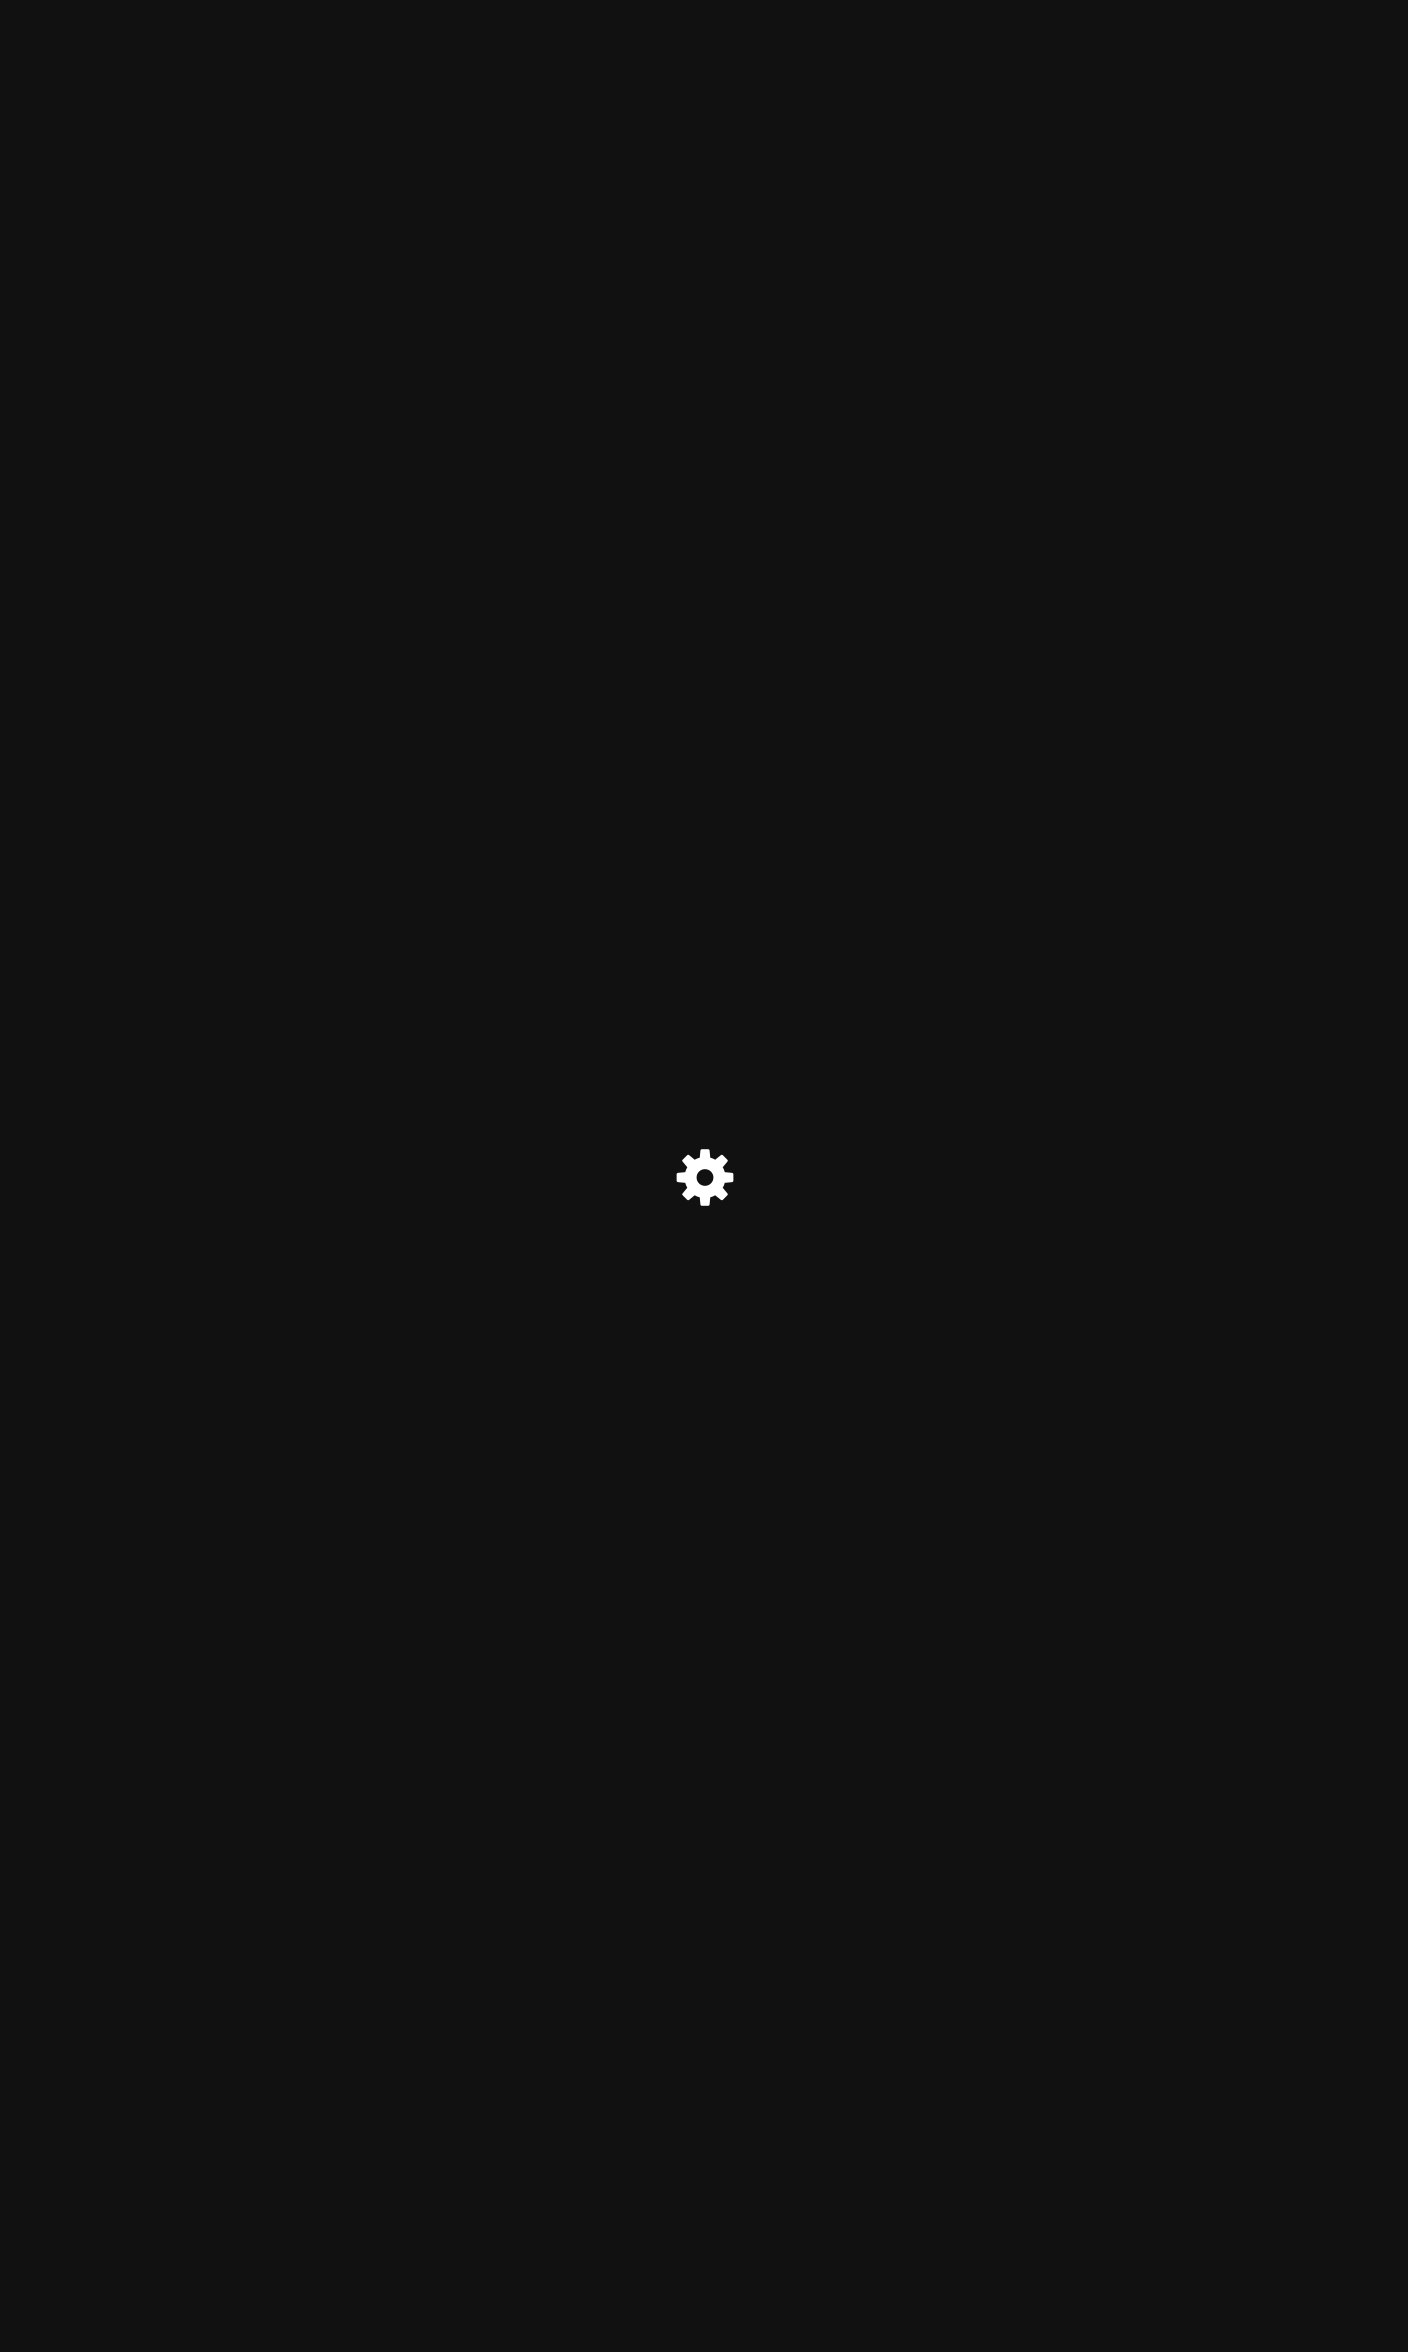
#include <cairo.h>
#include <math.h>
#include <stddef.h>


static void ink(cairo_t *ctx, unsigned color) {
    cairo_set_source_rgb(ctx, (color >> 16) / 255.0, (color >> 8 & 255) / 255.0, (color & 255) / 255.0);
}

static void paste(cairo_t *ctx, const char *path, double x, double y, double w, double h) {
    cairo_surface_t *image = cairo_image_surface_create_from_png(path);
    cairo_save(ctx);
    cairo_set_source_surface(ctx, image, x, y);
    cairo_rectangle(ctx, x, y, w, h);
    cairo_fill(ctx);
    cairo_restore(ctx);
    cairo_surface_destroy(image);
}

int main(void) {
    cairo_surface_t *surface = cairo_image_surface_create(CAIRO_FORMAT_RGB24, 1408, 2352);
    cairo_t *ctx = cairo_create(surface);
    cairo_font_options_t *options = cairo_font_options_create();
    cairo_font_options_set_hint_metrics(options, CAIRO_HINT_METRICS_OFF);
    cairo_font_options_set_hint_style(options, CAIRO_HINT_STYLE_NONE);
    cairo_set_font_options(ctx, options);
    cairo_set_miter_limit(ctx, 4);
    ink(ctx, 0x111111);
    cairo_paint(ctx);
    paste(ctx, "media/1.png", 676, 1149, 58, 57);
    cairo_surface_write_to_png(surface, "image.png");
    cairo_font_options_destroy(options);
    cairo_destroy(ctx);
    cairo_surface_destroy(surface);
    return 0;
}
